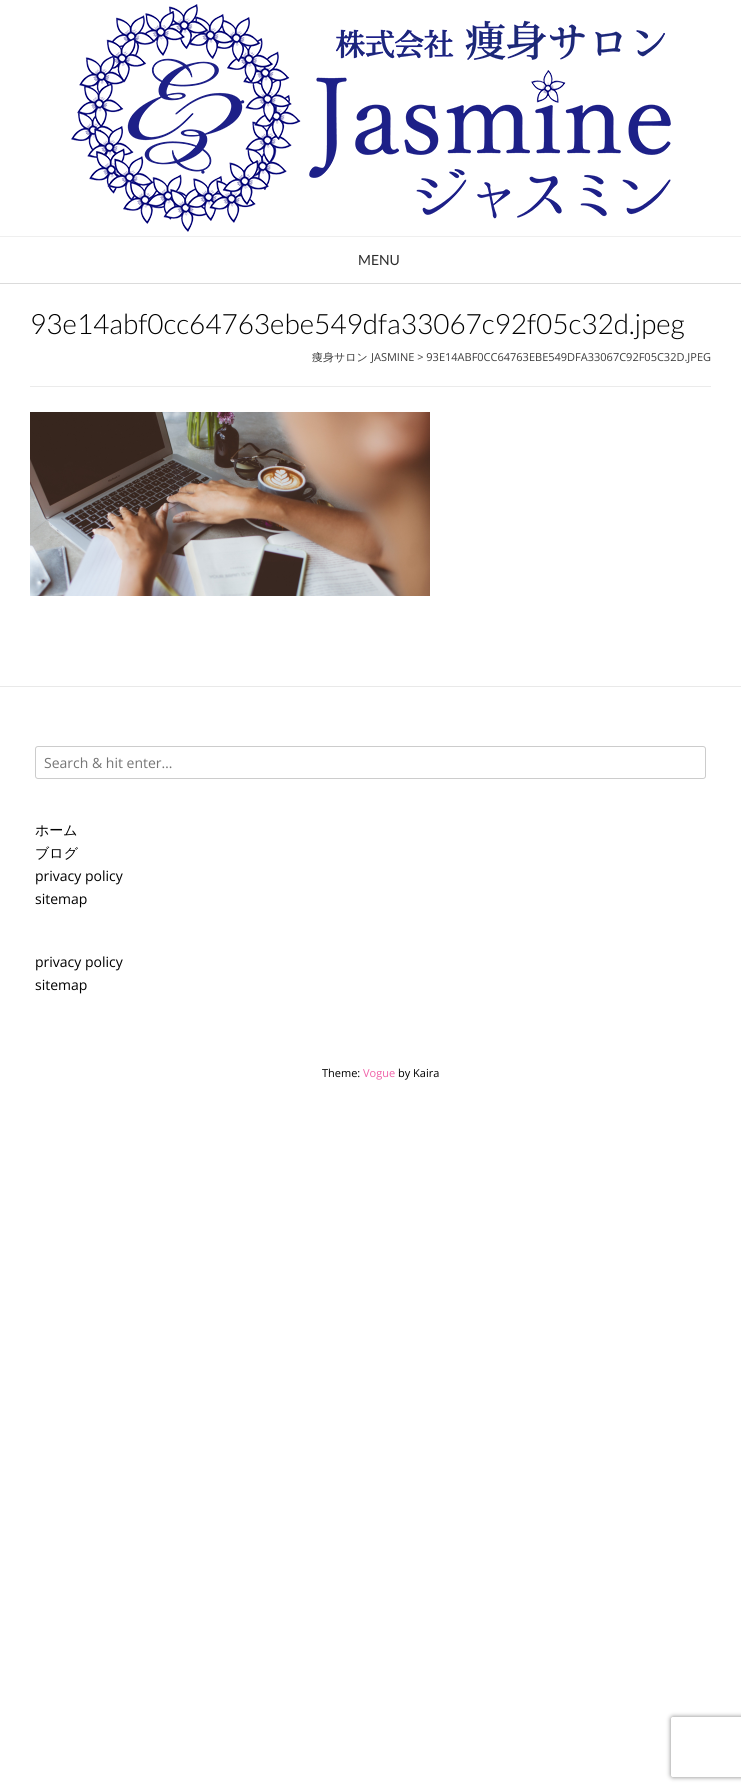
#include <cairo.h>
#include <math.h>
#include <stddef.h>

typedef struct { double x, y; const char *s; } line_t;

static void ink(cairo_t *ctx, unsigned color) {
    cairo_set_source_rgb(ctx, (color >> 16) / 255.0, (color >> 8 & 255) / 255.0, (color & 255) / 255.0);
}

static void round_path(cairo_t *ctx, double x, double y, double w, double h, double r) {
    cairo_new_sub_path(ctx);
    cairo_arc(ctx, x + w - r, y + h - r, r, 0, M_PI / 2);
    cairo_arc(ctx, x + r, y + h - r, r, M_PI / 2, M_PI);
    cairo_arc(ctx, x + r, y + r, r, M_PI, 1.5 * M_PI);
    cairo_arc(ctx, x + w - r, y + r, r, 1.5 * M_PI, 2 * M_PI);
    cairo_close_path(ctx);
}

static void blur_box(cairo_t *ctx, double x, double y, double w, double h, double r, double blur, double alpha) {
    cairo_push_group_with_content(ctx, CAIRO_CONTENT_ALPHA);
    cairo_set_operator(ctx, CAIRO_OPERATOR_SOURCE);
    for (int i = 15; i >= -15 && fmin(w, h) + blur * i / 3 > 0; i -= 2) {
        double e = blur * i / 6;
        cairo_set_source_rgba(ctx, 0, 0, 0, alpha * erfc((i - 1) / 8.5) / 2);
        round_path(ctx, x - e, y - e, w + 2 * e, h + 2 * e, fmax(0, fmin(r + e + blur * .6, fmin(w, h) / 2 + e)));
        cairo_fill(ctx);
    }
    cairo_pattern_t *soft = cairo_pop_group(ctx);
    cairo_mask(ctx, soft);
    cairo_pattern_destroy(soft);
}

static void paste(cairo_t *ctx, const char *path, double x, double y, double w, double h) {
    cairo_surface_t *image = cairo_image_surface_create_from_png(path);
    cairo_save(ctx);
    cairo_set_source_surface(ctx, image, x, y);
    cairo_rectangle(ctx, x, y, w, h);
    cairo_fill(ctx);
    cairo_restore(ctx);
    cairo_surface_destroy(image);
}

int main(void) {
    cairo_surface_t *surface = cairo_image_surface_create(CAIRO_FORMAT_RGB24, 741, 1791);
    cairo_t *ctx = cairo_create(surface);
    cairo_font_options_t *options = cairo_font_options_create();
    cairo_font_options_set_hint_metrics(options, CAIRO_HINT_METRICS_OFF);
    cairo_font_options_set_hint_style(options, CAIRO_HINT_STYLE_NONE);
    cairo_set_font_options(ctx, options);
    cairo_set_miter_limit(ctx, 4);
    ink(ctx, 0xFFFFFF);
    cairo_paint(ctx);
    ink(ctx, 0xDBDBDB);
    cairo_rectangle(ctx, 0, 283, 741, 1);
    cairo_fill(ctx);
    paste(ctx, "media/1.png", 71, 4, 600, 228);
    ink(ctx, 0xEFEFEF);
    cairo_rectangle(ctx, 0, 236, 741, 1);
    cairo_fill(ctx);
    cairo_select_font_face(ctx, "Lato", CAIRO_FONT_SLANT_NORMAL, CAIRO_FONT_WEIGHT_NORMAL);
    cairo_set_font_size(ctx, 14);
    ink(ctx, 0x2D2D2D);
    cairo_move_to(ctx, 358, 265);
    cairo_show_text(ctx, "MENU");
    ink(ctx, 0xEBEBEB);
    cairo_rectangle(ctx, 30, 386, 681, 1);
    cairo_fill(ctx);
    cairo_select_font_face(ctx, "Lato Light", CAIRO_FONT_SLANT_NORMAL, CAIRO_FONT_WEIGHT_NORMAL);
    cairo_set_font_size(ctx, 28);
    ink(ctx, 0x000000);
    cairo_move_to(ctx, 30, 334);
    cairo_show_text(ctx, "93e14abf0cc64763ebe549dfa33067c92f05c32d.jpeg");
    cairo_select_font_face(ctx, "WenQuanYi Zen Hei Medium", CAIRO_FONT_SLANT_NORMAL, CAIRO_FONT_WEIGHT_NORMAL);
    cairo_set_font_size(ctx, 11);
    ink(ctx, 0x3C3C3C);
    cairo_move_to(ctx, 312, 361);
    cairo_show_text(ctx, "痩身サロン");
    cairo_select_font_face(ctx, "Open Sans", CAIRO_FONT_SLANT_NORMAL, CAIRO_FONT_WEIGHT_NORMAL);
    cairo_move_to(ctx, 371, 361);
    cairo_show_text(ctx, "JASMINE > 93E14ABF0CC64763EBE549DFA33067C92F05C32D.JPEG");
    paste(ctx, "media/2.png", 30, 412, 400, 184);
    ink(ctx, 0xE9E9E9);
    cairo_rectangle(ctx, 0, 686, 741, 1);
    cairo_fill(ctx);
    round_path(ctx, 35.5, 746.5, 670, 32, 2.5);
    ink(ctx, 0xCCCCCC);
    cairo_set_line_width(ctx, 1);
    cairo_stroke(ctx);
    cairo_set_font_size(ctx, 14);
    ink(ctx, 0x757575);
    cairo_move_to(ctx, 44, 768);
    cairo_show_text(ctx, "Search & hit enter…");
    cairo_select_font_face(ctx, "WenQuanYi Zen Hei Medium", CAIRO_FONT_SLANT_NORMAL, CAIRO_FONT_WEIGHT_NORMAL);
    ink(ctx, 0x000000);
    cairo_move_to(ctx, 35, 835);
    cairo_show_text(ctx, "ホーム");
    cairo_move_to(ctx, 35, 858);
    cairo_show_text(ctx, "ブログ");
    cairo_select_font_face(ctx, "Open Sans", CAIRO_FONT_SLANT_NORMAL, CAIRO_FONT_WEIGHT_NORMAL);
    {
        static const line_t items[] = {
            {35, 881, "privacy policy"},
            {35, 904, "sitemap"},
            {35, 967, "privacy policy"},
            {35, 990, "sitemap"},
        };
        for (size_t i = 0; i < sizeof items / sizeof *items; i++) {
            cairo_move_to(ctx, items[i].x, items[i].y);
            cairo_show_text(ctx, items[i].s);
        }
    }
    cairo_set_font_size(ctx, 11);
    cairo_move_to(ctx, 322, 1077);
    cairo_show_text(ctx, "Theme:");
    ink(ctx, 0xF061A8);
    cairo_move_to(ctx, 363, 1077);
    cairo_show_text(ctx, "Vogue");
    ink(ctx, 0x000000);
    cairo_move_to(ctx, 398, 1077);
    cairo_show_text(ctx, "by Kaira");
    cairo_save(ctx);
    cairo_set_fill_rule(ctx, CAIRO_FILL_RULE_EVEN_ODD);
    cairo_new_path(ctx);
    cairo_move_to(ctx, 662, 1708);
    cairo_line_to(ctx, 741, 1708);
    cairo_line_to(ctx, 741, 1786);
    cairo_line_to(ctx, 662, 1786);
    cairo_close_path(ctx);
    cairo_move_to(ctx, 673, 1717);
    cairo_line_to(ctx, 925, 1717);
    cairo_curve_to(ctx, 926, 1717, 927, 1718, 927, 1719);
    cairo_line_to(ctx, 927, 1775);
    cairo_curve_to(ctx, 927, 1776, 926, 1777, 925, 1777);
    cairo_line_to(ctx, 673, 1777);
    cairo_curve_to(ctx, 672, 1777, 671, 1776, 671, 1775);
    cairo_line_to(ctx, 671, 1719);
    cairo_curve_to(ctx, 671, 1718, 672, 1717, 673, 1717);
    cairo_close_path(ctx);
    cairo_clip(ctx);
    ink(ctx, 0x808080);
    blur_box(ctx, 671, 1717, 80, 60, 2, 2.5, 1);
    cairo_restore(ctx);
    cairo_surface_write_to_png(surface, "image.png");
    cairo_font_options_destroy(options);
    cairo_destroy(ctx);
    cairo_surface_destroy(surface);
    return 0;
}
